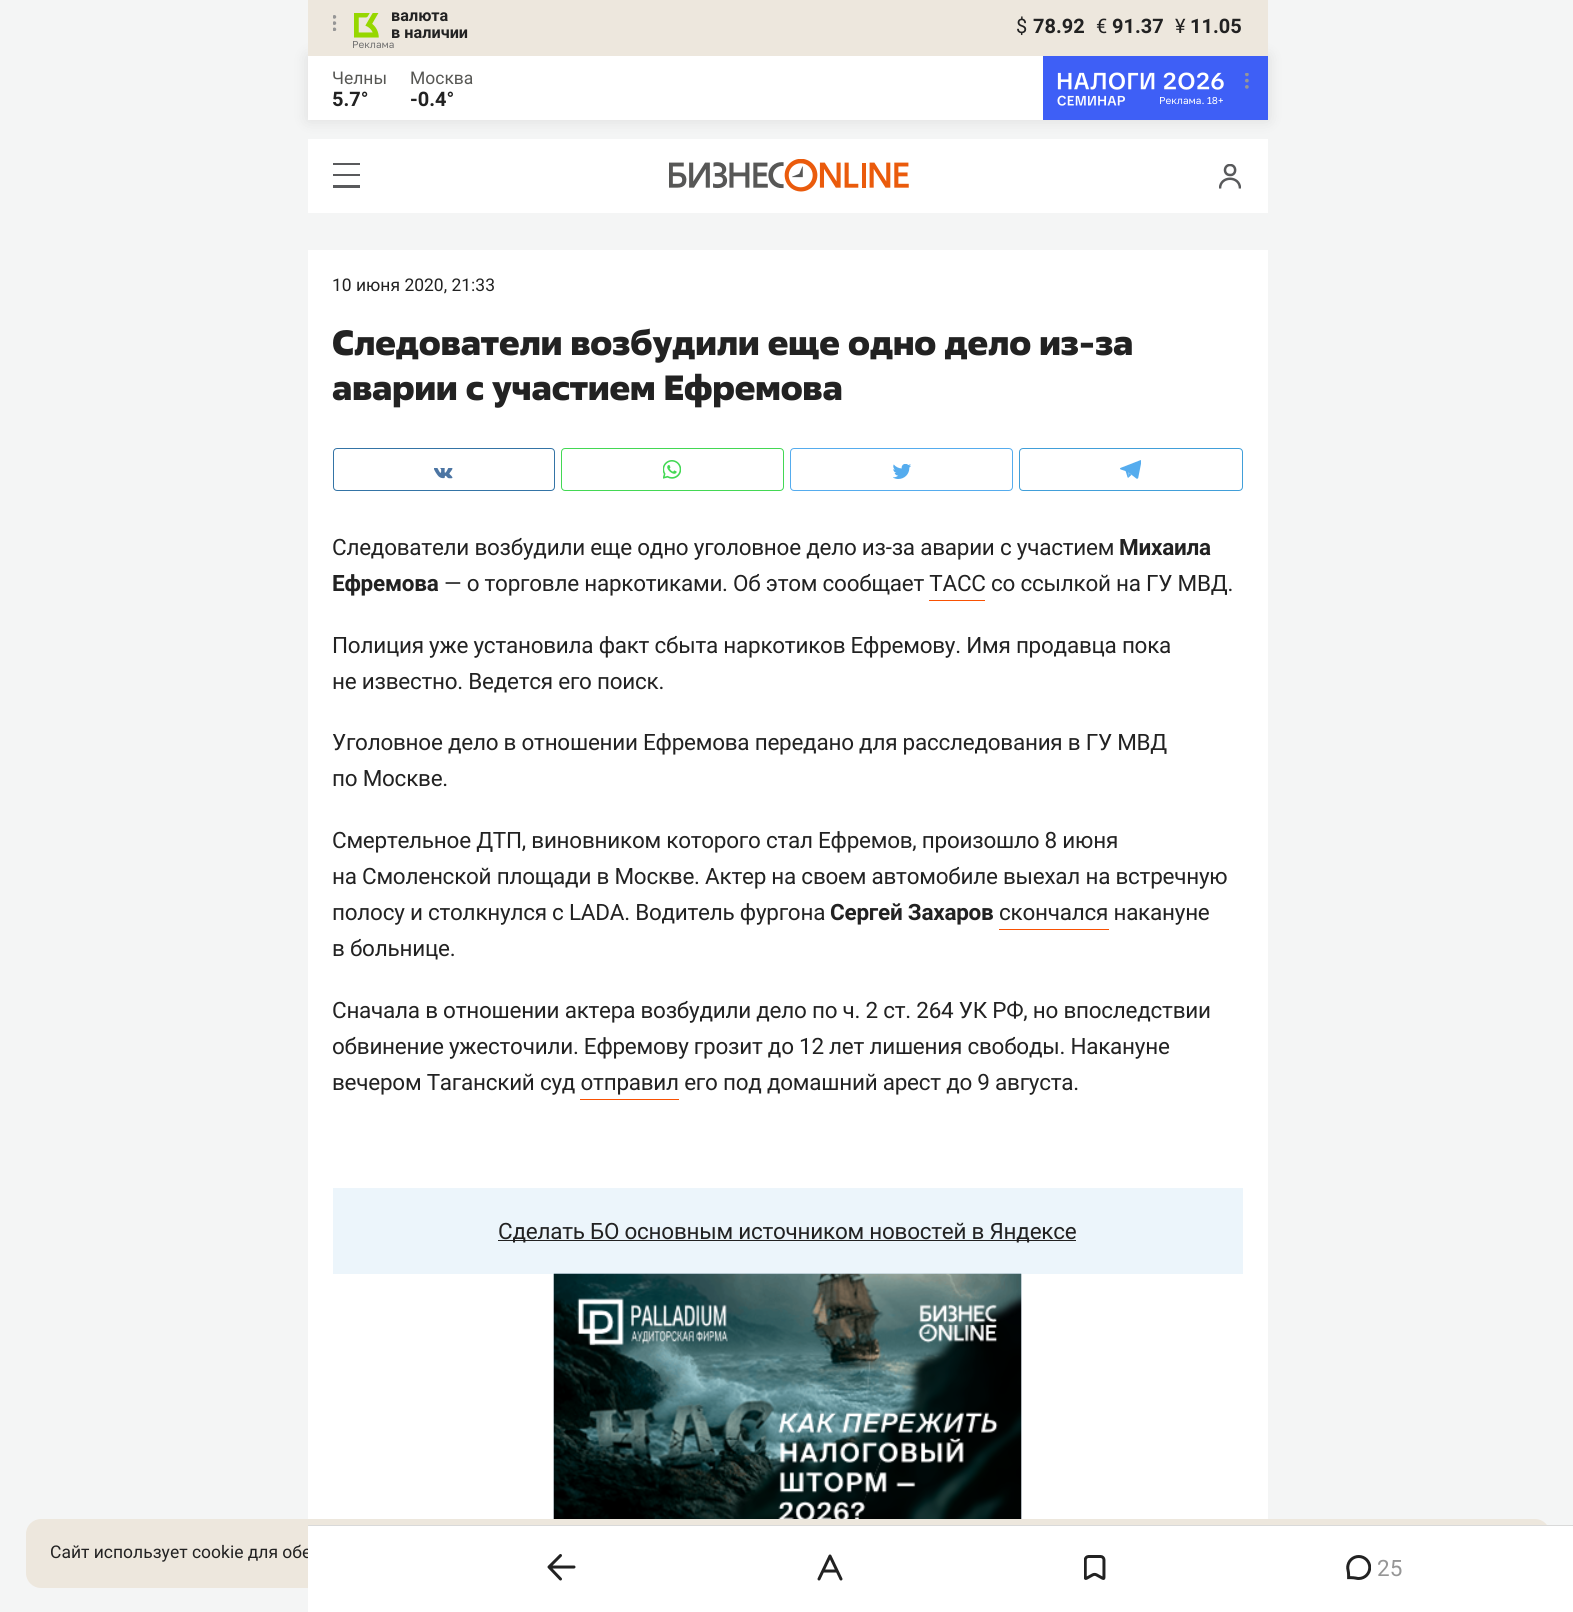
#include <cairo.h>
#include <math.h>
#include <stddef.h>

typedef struct { double x, y; const char *s; } line_t;
typedef struct { double x, y, w, h; unsigned color; } box_t;

static void ink(cairo_t *ctx, unsigned color) {
    cairo_set_source_rgb(ctx, (color >> 16) / 255.0, (color >> 8 & 255) / 255.0, (color & 255) / 255.0);
}

static void write_spaced(cairo_t *ctx, double x, double y, const char *s, double letter, double word) {
    cairo_move_to(ctx, x, y);
    while (*s) {
        char ch[5] = {0};
        int n = 0;
        do ch[n++] = *s++; while ((*s & 0xC0) == 0x80);
        cairo_show_text(ctx, ch);
        cairo_rel_move_to(ctx, letter + word * (*ch == ' '), 0);
    }
}

static void round_path(cairo_t *ctx, double x, double y, double w, double h, double r) {
    cairo_new_sub_path(ctx);
    cairo_arc(ctx, x + w - r, y + h - r, r, 0, M_PI / 2);
    cairo_arc(ctx, x + r, y + h - r, r, M_PI / 2, M_PI);
    cairo_arc(ctx, x + r, y + r, r, M_PI, 1.5 * M_PI);
    cairo_arc(ctx, x + w - r, y + r, r, 1.5 * M_PI, 2 * M_PI);
    cairo_close_path(ctx);
}

static void blur_box(cairo_t *ctx, double x, double y, double w, double h, double r, double blur, double alpha) {
    cairo_push_group_with_content(ctx, CAIRO_CONTENT_ALPHA);
    cairo_set_operator(ctx, CAIRO_OPERATOR_SOURCE);
    for (int i = 15; i >= -15 && fmin(w, h) + blur * i / 3 > 0; i -= 2) {
        double e = blur * i / 6;
        cairo_set_source_rgba(ctx, 0, 0, 0, alpha * erfc((i - 1) / 8.5) / 2);
        round_path(ctx, x - e, y - e, w + 2 * e, h + 2 * e, fmax(0, fmin(r + e + blur * .6, fmin(w, h) / 2 + e)));
        cairo_fill(ctx);
    }
    cairo_pattern_t *soft = cairo_pop_group(ctx);
    cairo_mask(ctx, soft);
    cairo_pattern_destroy(soft);
}

static void paste(cairo_t *ctx, const char *path, double x, double y, double w, double h) {
    cairo_surface_t *image = cairo_image_surface_create_from_png(path);
    cairo_save(ctx);
    cairo_set_source_surface(ctx, image, x, y);
    cairo_rectangle(ctx, x, y, w, h);
    cairo_fill(ctx);
    cairo_restore(ctx);
    cairo_surface_destroy(image);
}

int main(void) {
    cairo_surface_t *surface = cairo_image_surface_create(CAIRO_FORMAT_RGB24, 1573, 1612);
    cairo_t *ctx = cairo_create(surface);
    cairo_font_options_t *options = cairo_font_options_create();
    cairo_font_options_set_hint_metrics(options, CAIRO_HINT_METRICS_OFF);
    cairo_font_options_set_hint_style(options, CAIRO_HINT_STYLE_NONE);
    cairo_set_font_options(ctx, options);
    cairo_set_miter_limit(ctx, 4);
    ink(ctx, 0xF4F5F5);
    cairo_paint(ctx);
    ink(ctx, 0x000000);
    blur_box(ctx, 308, 56, 960, 64, 0, 7.5, 0.1);
    ink(ctx, 0xEDE7DD);
    cairo_rectangle(ctx, 308, 0, 960, 56);
    cairo_fill(ctx);
    paste(ctx, "media/1.png", 333, 15, 4, 16);
    paste(ctx, "media/2.png", 354, 13, 25, 25);
    cairo_select_font_face(ctx, "Roboto", CAIRO_FONT_SLANT_NORMAL, CAIRO_FONT_WEIGHT_BOLD);
    cairo_set_font_size(ctx, 16.25);
    ink(ctx, 0x222222);
    cairo_move_to(ctx, 391, 21);
    cairo_show_text(ctx, "валюта");
    cairo_move_to(ctx, 391, 38);
    cairo_show_text(ctx, "в наличии");
    cairo_select_font_face(ctx, "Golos", CAIRO_FONT_SLANT_NORMAL, CAIRO_FONT_WEIGHT_NORMAL);
    cairo_set_font_size(ctx, 10);
    ink(ctx, 0x717171);
    cairo_move_to(ctx, 352, 48);
    cairo_show_text(ctx, "Реклама");
    cairo_select_font_face(ctx, "Roboto", CAIRO_FONT_SLANT_NORMAL, CAIRO_FONT_WEIGHT_NORMAL);
    cairo_set_font_size(ctx, 20);
    ink(ctx, 0x222222);
    cairo_move_to(ctx, 1016, 33);
    cairo_show_text(ctx, "$");
    cairo_select_font_face(ctx, "Roboto", CAIRO_FONT_SLANT_NORMAL, CAIRO_FONT_WEIGHT_BOLD);
    cairo_move_to(ctx, 1033, 33);
    cairo_show_text(ctx, "78.92");
    cairo_select_font_face(ctx, "Roboto", CAIRO_FONT_SLANT_NORMAL, CAIRO_FONT_WEIGHT_NORMAL);
    cairo_move_to(ctx, 1096, 33);
    cairo_show_text(ctx, "€");
    cairo_select_font_face(ctx, "Roboto", CAIRO_FONT_SLANT_NORMAL, CAIRO_FONT_WEIGHT_BOLD);
    cairo_move_to(ctx, 1112, 33);
    cairo_show_text(ctx, "91.37");
    cairo_select_font_face(ctx, "Roboto", CAIRO_FONT_SLANT_NORMAL, CAIRO_FONT_WEIGHT_NORMAL);
    cairo_move_to(ctx, 1175, 33);
    cairo_show_text(ctx, "¥");
    cairo_select_font_face(ctx, "Roboto", CAIRO_FONT_SLANT_NORMAL, CAIRO_FONT_WEIGHT_BOLD);
    cairo_move_to(ctx, 1190, 33);
    cairo_show_text(ctx, "11.05");
    ink(ctx, 0xFFFFFF);
    cairo_rectangle(ctx, 308, 56, 735, 64);
    cairo_fill(ctx);
    cairo_select_font_face(ctx, "Roboto", CAIRO_FONT_SLANT_NORMAL, CAIRO_FONT_WEIGHT_NORMAL);
    cairo_set_font_size(ctx, 17.5);
    ink(ctx, 0x575754);
    cairo_move_to(ctx, 332, 84);
    cairo_show_text(ctx, "Челны");
    cairo_select_font_face(ctx, "Roboto", CAIRO_FONT_SLANT_NORMAL, CAIRO_FONT_WEIGHT_BOLD);
    cairo_set_font_size(ctx, 20);
    ink(ctx, 0x222222);
    cairo_move_to(ctx, 332, 106);
    cairo_show_text(ctx, "5.7°");
    cairo_select_font_face(ctx, "Roboto", CAIRO_FONT_SLANT_NORMAL, CAIRO_FONT_WEIGHT_NORMAL);
    cairo_set_font_size(ctx, 17.5);
    ink(ctx, 0x575754);
    cairo_move_to(ctx, 410, 84);
    cairo_show_text(ctx, "Москва");
    cairo_select_font_face(ctx, "Roboto", CAIRO_FONT_SLANT_NORMAL, CAIRO_FONT_WEIGHT_BOLD);
    cairo_set_font_size(ctx, 20);
    ink(ctx, 0x222222);
    cairo_move_to(ctx, 410, 106);
    cairo_show_text(ctx, "-0.4°");
    paste(ctx, "media/3.png", 1043, 56, 225, 64);
    paste(ctx, "media/4.png", 1245, 73, 4, 16);
    cairo_select_font_face(ctx, "Golos", CAIRO_FONT_SLANT_NORMAL, CAIRO_FONT_WEIGHT_NORMAL);
    cairo_set_font_size(ctx, 10);
    ink(ctx, 0xFFFFFF);
    cairo_move_to(ctx, 1159, 104);
    cairo_show_text(ctx, "Реклама. 18+");
    {
        static const box_t items[] = {
            {308, 139, 960, 74, 0xFFFFFF},
            {333, 163, 27, 25, 0x595A5C},
            {333, 165, 27, 9, 0xFFFFFF},
            {333, 176, 27, 9, 0xFFFFFF},
        };
        for (size_t i = 0; i < sizeof items / sizeof *items; i++) {
            ink(ctx, items[i].color);
            cairo_rectangle(ctx, items[i].x, items[i].y, items[i].w, items[i].h);
            cairo_fill(ctx);
        }
    }
    paste(ctx, "media/5.png", 669, 159, 240, 33);
    cairo_save(ctx);
    cairo_rectangle(ctx, 1219, 164, 22, 25);
    cairo_clip(ctx);
    cairo_new_path(ctx);
    cairo_move_to(ctx, 1240, 188.5);
    cairo_curve_to(ctx, 1240, 175.5, 1220, 175.5, 1220, 188.5);
    cairo_move_to(ctx, 1230, 175);
    cairo_curve_to(ctx, 1236.5, 175.5, 1237, 165.5, 1230.5, 165);
    cairo_curve_to(ctx, 1223.5, 164.5, 1223, 175, 1230, 175);
    cairo_close_path(ctx);
    ink(ctx, 0x58595B);
    cairo_set_line_width(ctx, 2.5);
    cairo_stroke(ctx);
    cairo_restore(ctx);
    ink(ctx, 0xEDE7DD);
    round_path(ctx, 26, 1519, 1524, 69, 15);
    cairo_fill(ctx);
    cairo_select_font_face(ctx, "Roboto", CAIRO_FONT_SLANT_NORMAL, CAIRO_FONT_WEIGHT_NORMAL);
    cairo_set_font_size(ctx, 17.5);
    ink(ctx, 0x222222);
    cairo_move_to(ctx, 50, 1558);
    cairo_show_text(ctx, "Сайт использует cookie для обе");
    ink(ctx, 0xFFFFFF);
    cairo_rectangle(ctx, 308, 250, 960, 1269);
    cairo_fill(ctx);
    ink(ctx, 0x222222);
    cairo_move_to(ctx, 332, 291);
    cairo_show_text(ctx, "10 июня 2020, 21:33");
    cairo_select_font_face(ctx, "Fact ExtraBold", CAIRO_FONT_SLANT_NORMAL, CAIRO_FONT_WEIGHT_NORMAL);
    cairo_set_font_size(ctx, 35);
    cairo_move_to(ctx, 332, 355);
    cairo_show_text(ctx, "Следователи возбудили еще одно дело из-за");
    cairo_move_to(ctx, 332, 400);
    cairo_show_text(ctx, "аварии с участием Ефремова");
    round_path(ctx, 333.5, 448.5, 221, 42, 3.5);
    ink(ctx, 0x3474A6);
    cairo_set_line_width(ctx, 1);
    cairo_stroke(ctx);
    paste(ctx, "media/6.png", 434, 468, 19, 11);
    round_path(ctx, 561.5, 448.5, 222, 42, 3.5);
    ink(ctx, 0x43D854);
    cairo_stroke(ctx);
    paste(ctx, "media/7.png", 663, 460, 18, 19);
    round_path(ctx, 790.5, 448.5, 222, 42, 3.5);
    ink(ctx, 0x55ACEE);
    cairo_stroke(ctx);
    paste(ctx, "media/8.png", 893, 464, 18, 15);
    round_path(ctx, 1019.5, 448.5, 223, 42, 3.5);
    ink(ctx, 0x419FD9);
    cairo_stroke(ctx);
    paste(ctx, "media/9.png", 1120, 460, 21, 19);
    cairo_select_font_face(ctx, "Roboto", CAIRO_FONT_SLANT_NORMAL, CAIRO_FONT_WEIGHT_NORMAL);
    cairo_set_font_size(ctx, 22.5);
    ink(ctx, 0x222222);
    write_spaced(ctx, 332, 555, "Следователи возбудили еще одно уголовное дело из-за аварии с участием", -0.25, 0);
    cairo_select_font_face(ctx, "Roboto", CAIRO_FONT_SLANT_NORMAL, CAIRO_FONT_WEIGHT_BOLD);
    write_spaced(ctx, 1119, 555, "Михаила", -0.25, 0);
    write_spaced(ctx, 332, 591, "Ефремова", -0.25, 0);
    cairo_select_font_face(ctx, "Roboto", CAIRO_FONT_SLANT_NORMAL, CAIRO_FONT_WEIGHT_NORMAL);
    write_spaced(ctx, 444, 591, "— о торговле наркотиками. Об этом сообщает ТАСС со ссылкой на ГУ МВД.", -0.25, 0);
    ink(ctx, 0xF95102);
    cairo_rectangle(ctx, 929, 600, 56, 1);
    cairo_fill(ctx);
    ink(ctx, 0x222222);
    {
        static const line_t items[] = {
            {332, 653, "Полиция уже установила факт сбыта наркотиков Ефремову. Имя продавца пока"},
            {332, 689, "не известно. Ведется его поиск."},
            {332, 750, "Уголовное дело в отношении Ефремова передано для расследования в ГУ МВД"},
            {332, 786, "по Москве."},
            {332, 848, "Смертельное ДТП, виновником которого стал Ефремов, произошло 8 июня"},
            {332, 884, "на Смоленской площади в Москве. Актер на своем автомобиле выехал на встречную"},
            {332, 920, "полосу и столкнулся с LADA. Водитель фургона"},
        };
        for (size_t i = 0; i < sizeof items / sizeof *items; i++) {
            write_spaced(ctx, items[i].x, items[i].y, items[i].s, -0.25, 0);
        }
    }
    cairo_select_font_face(ctx, "Roboto", CAIRO_FONT_SLANT_NORMAL, CAIRO_FONT_WEIGHT_BOLD);
    write_spaced(ctx, 830, 920, "Сергей Захаров", -0.25, 0);
    cairo_select_font_face(ctx, "Roboto", CAIRO_FONT_SLANT_NORMAL, CAIRO_FONT_WEIGHT_NORMAL);
    write_spaced(ctx, 999, 920, "скончался накануне", -0.25, 0);
    ink(ctx, 0xF95102);
    cairo_rectangle(ctx, 999, 929, 110, 1);
    cairo_fill(ctx);
    ink(ctx, 0x222222);
    {
        static const line_t items[] = {
            {332, 956, "в больнице."},
            {332, 1018, "Сначала в отношении актера возбудили дело по ч. 2 ст. 264 УК РФ, но впоследствии"},
            {332, 1054, "обвинение ужесточили. Ефремову грозит до 12 лет лишения свободы. Накануне"},
            {332, 1090, "вечером Таганский суд отправил его под домашний арест до 9 августа."},
        };
        for (size_t i = 0; i < sizeof items / sizeof *items; i++) {
            write_spaced(ctx, items[i].x, items[i].y, items[i].s, -0.25, 0);
        }
    }
    {
        static const box_t items[] = {
            {580, 1099, 99, 1, 0xF95102},
            {333, 1188, 910, 86, 0xECF5FB},
            {498, 1240, 578, 1, 0x222222},
        };
        for (size_t i = 0; i < sizeof items / sizeof *items; i++) {
            ink(ctx, items[i].color);
            cairo_rectangle(ctx, items[i].x, items[i].y, items[i].w, items[i].h);
            cairo_fill(ctx);
        }
    }
    write_spaced(ctx, 498, 1239, "Сделать БО основным источником новостей в Яндексе", -0.25, 0);
    paste(ctx, "media/10.png", 553, 1273, 469, 246);
    ink(ctx, 0xFFFFFF);
    cairo_rectangle(ctx, 308, 1526, 1265, 86);
    cairo_fill(ctx);
    ink(ctx, 0xD9D9D9);
    cairo_rectangle(ctx, 308, 1525, 1265, 1);
    cairo_fill(ctx);
    cairo_new_path(ctx);
    cairo_move_to(ctx, 560.5, 1555.5);
    cairo_line_to(ctx, 549, 1567);
    cairo_line_to(ctx, 560.5, 1579);
    cairo_move_to(ctx, 574, 1567);
    cairo_line_to(ctx, 549, 1567);
    ink(ctx, 0x222222);
    cairo_set_line_width(ctx, 3);
    cairo_set_line_cap(ctx, CAIRO_LINE_CAP_ROUND);
    cairo_set_line_join(ctx, CAIRO_LINE_JOIN_ROUND);
    cairo_stroke(ctx);
    cairo_new_path(ctx);
    cairo_move_to(ctx, 819, 1579);
    cairo_line_to(ctx, 830, 1556);
    cairo_line_to(ctx, 841, 1579);
    cairo_move_to(ctx, 823, 1571);
    cairo_line_to(ctx, 837, 1571);
    cairo_stroke(ctx);
    paste(ctx, "media/11.png", 1084, 1555, 22, 25);
    paste(ctx, "media/12.png", 1346, 1555, 25, 25);
    ink(ctx, 0x969696);
    cairo_move_to(ctx, 1377, 1576);
    cairo_show_text(ctx, "25");
    cairo_surface_write_to_png(surface, "image.png");
    cairo_font_options_destroy(options);
    cairo_destroy(ctx);
    cairo_surface_destroy(surface);
    return 0;
}
